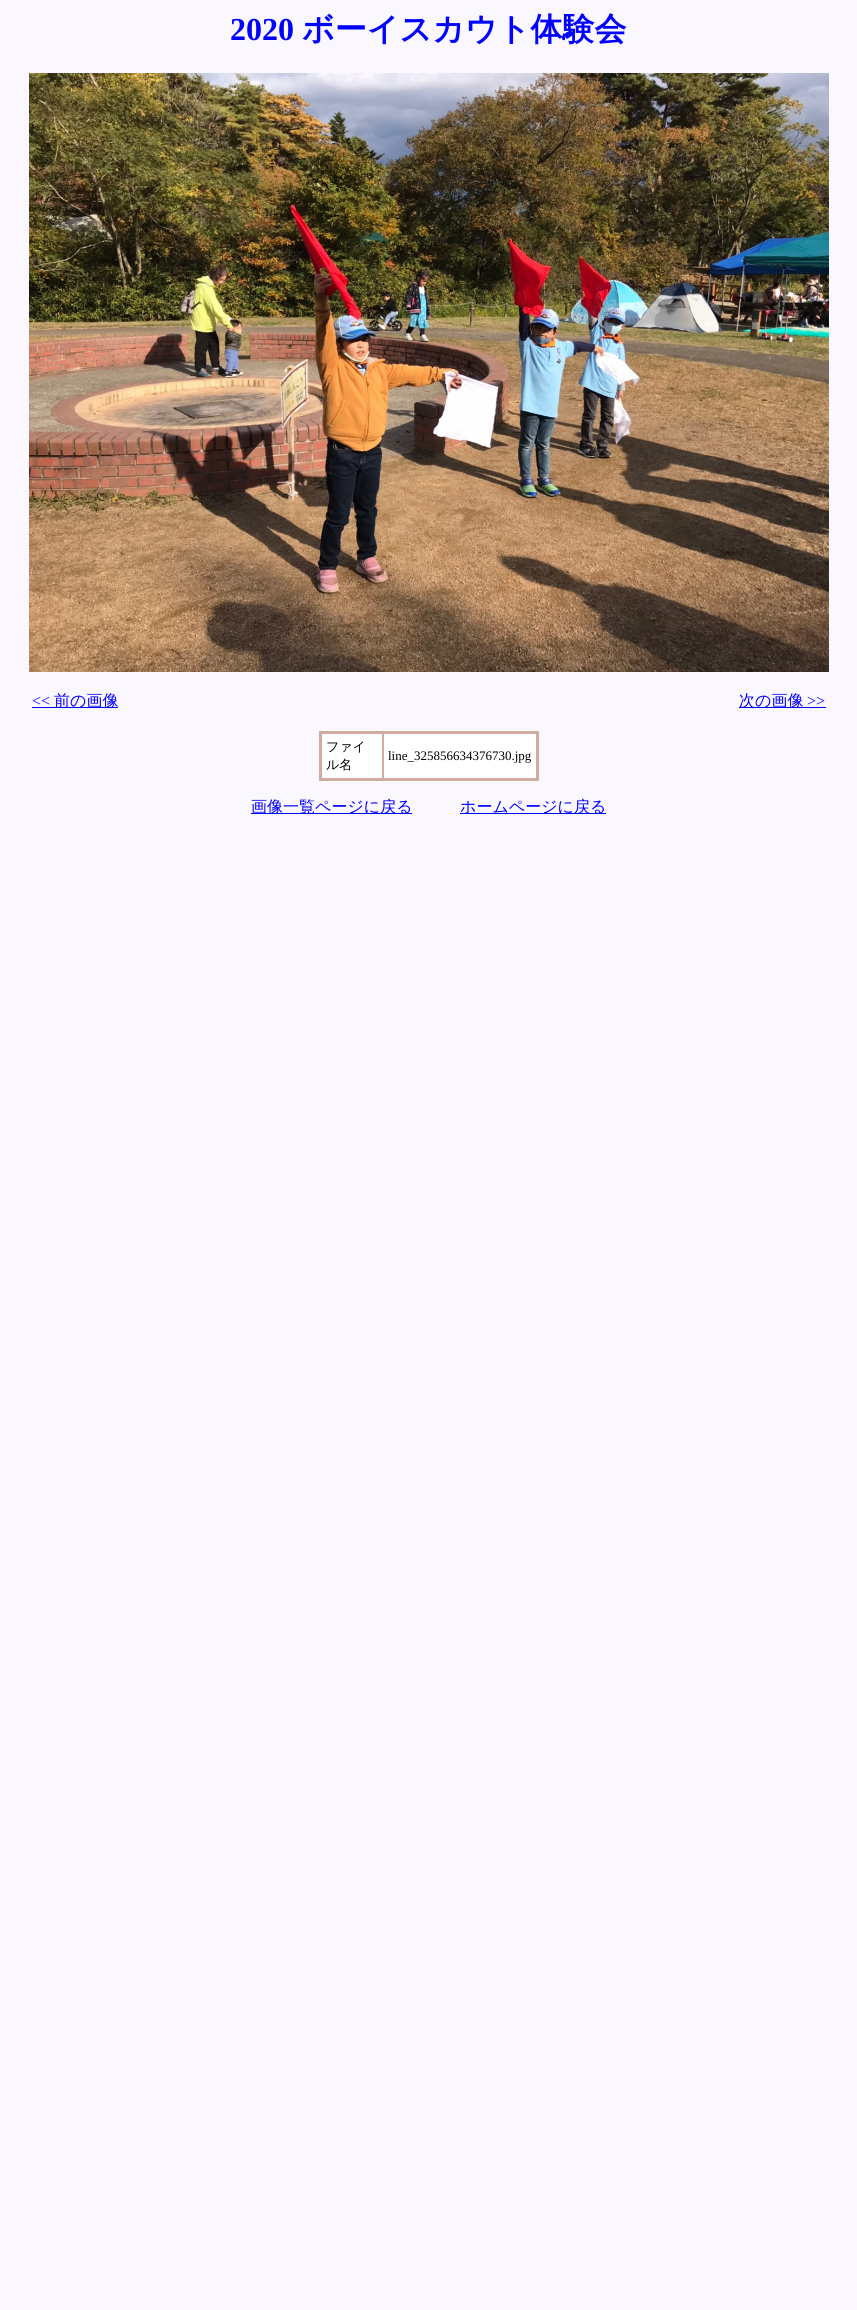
#include <cairo.h>
#include <math.h>
#include <stddef.h>


static void ink(cairo_t *ctx, unsigned color) {
    cairo_set_source_rgb(ctx, (color >> 16) / 255.0, (color >> 8 & 255) / 255.0, (color & 255) / 255.0);
}

static void paste(cairo_t *ctx, const char *path, double x, double y, double w, double h) {
    cairo_surface_t *image = cairo_image_surface_create_from_png(path);
    cairo_save(ctx);
    cairo_set_source_surface(ctx, image, x, y);
    cairo_rectangle(ctx, x, y, w, h);
    cairo_fill(ctx);
    cairo_restore(ctx);
    cairo_surface_destroy(image);
}

int main(void) {
    cairo_surface_t *surface = cairo_image_surface_create(CAIRO_FORMAT_RGB24, 857, 2310);
    cairo_t *ctx = cairo_create(surface);
    cairo_font_options_t *options = cairo_font_options_create();
    cairo_font_options_set_hint_metrics(options, CAIRO_HINT_METRICS_OFF);
    cairo_font_options_set_hint_style(options, CAIRO_HINT_STYLE_NONE);
    cairo_set_font_options(ctx, options);
    cairo_set_miter_limit(ctx, 4);
    ink(ctx, 0xFAF7FF);
    cairo_paint(ctx);
    cairo_select_font_face(ctx, "Liberation Serif", CAIRO_FONT_SLANT_NORMAL, CAIRO_FONT_WEIGHT_BOLD);
    cairo_set_font_size(ctx, 32);
    ink(ctx, 0x0000FF);
    cairo_move_to(ctx, 230, 40);
    cairo_show_text(ctx, "2020");
    cairo_select_font_face(ctx, "WenQuanYi Zen Hei", CAIRO_FONT_SLANT_NORMAL, CAIRO_FONT_WEIGHT_BOLD);
    cairo_move_to(ctx, 302, 40);
    cairo_show_text(ctx, "ボーイスカウト体験会");
    paste(ctx, "media/1.png", 29, 73, 800, 599);
    cairo_select_font_face(ctx, "Liberation Serif", CAIRO_FONT_SLANT_NORMAL, CAIRO_FONT_WEIGHT_NORMAL);
    cairo_set_font_size(ctx, 16);
    cairo_move_to(ctx, 32, 706);
    cairo_show_text(ctx, "<<");
    cairo_rectangle(ctx, 32, 707, 86, 1);
    cairo_fill(ctx);
    cairo_select_font_face(ctx, "WenQuanYi Zen Hei Medium", CAIRO_FONT_SLANT_NORMAL, CAIRO_FONT_WEIGHT_NORMAL);
    cairo_move_to(ctx, 54, 706);
    cairo_show_text(ctx, "前の画像");
    cairo_rectangle(ctx, 739, 707, 87, 1);
    cairo_fill(ctx);
    cairo_move_to(ctx, 739, 706);
    cairo_show_text(ctx, "次の画像");
    cairo_select_font_face(ctx, "Liberation Serif", CAIRO_FONT_SLANT_NORMAL, CAIRO_FONT_WEIGHT_NORMAL);
    cairo_move_to(ctx, 807, 706);
    cairo_show_text(ctx, ">>");
    ink(ctx, 0xFFFFFF);
    cairo_rectangle(ctx, 322, 734, 214, 44);
    cairo_fill(ctx);
    cairo_rectangle(ctx, 320, 732, 218, 48);
    ink(ctx, 0xD1ACA3);
    cairo_stroke(ctx);
    cairo_rectangle(ctx, 321.5, 733.5, 61, 45);
    cairo_set_line_width(ctx, 1);
    cairo_stroke(ctx);
    cairo_select_font_face(ctx, "WenQuanYi Zen Hei Medium", CAIRO_FONT_SLANT_NORMAL, CAIRO_FONT_WEIGHT_NORMAL);
    cairo_set_font_size(ctx, 13);
    ink(ctx, 0x000000);
    cairo_move_to(ctx, 326, 751);
    cairo_show_text(ctx, "ファイ");
    cairo_move_to(ctx, 326, 769);
    cairo_show_text(ctx, "ル名");
    cairo_rectangle(ctx, 383.5, 733.5, 153, 45);
    ink(ctx, 0xD1ACA3);
    cairo_stroke(ctx);
    cairo_select_font_face(ctx, "Liberation Serif", CAIRO_FONT_SLANT_NORMAL, CAIRO_FONT_WEIGHT_NORMAL);
    ink(ctx, 0x000000);
    cairo_move_to(ctx, 388, 760);
    cairo_show_text(ctx, "line_325856634376730.jpg");
    ink(ctx, 0x0000FF);
    cairo_rectangle(ctx, 251, 813, 161, 1);
    cairo_fill(ctx);
    cairo_select_font_face(ctx, "WenQuanYi Zen Hei Medium", CAIRO_FONT_SLANT_NORMAL, CAIRO_FONT_WEIGHT_NORMAL);
    cairo_set_font_size(ctx, 16);
    cairo_move_to(ctx, 251, 812);
    cairo_show_text(ctx, "画像一覧ページに戻る");
    cairo_rectangle(ctx, 460, 813, 146, 1);
    cairo_fill(ctx);
    cairo_move_to(ctx, 460, 812);
    cairo_show_text(ctx, "ホームページに戻る");
    cairo_surface_write_to_png(surface, "image.png");
    cairo_font_options_destroy(options);
    cairo_destroy(ctx);
    cairo_surface_destroy(surface);
    return 0;
}
